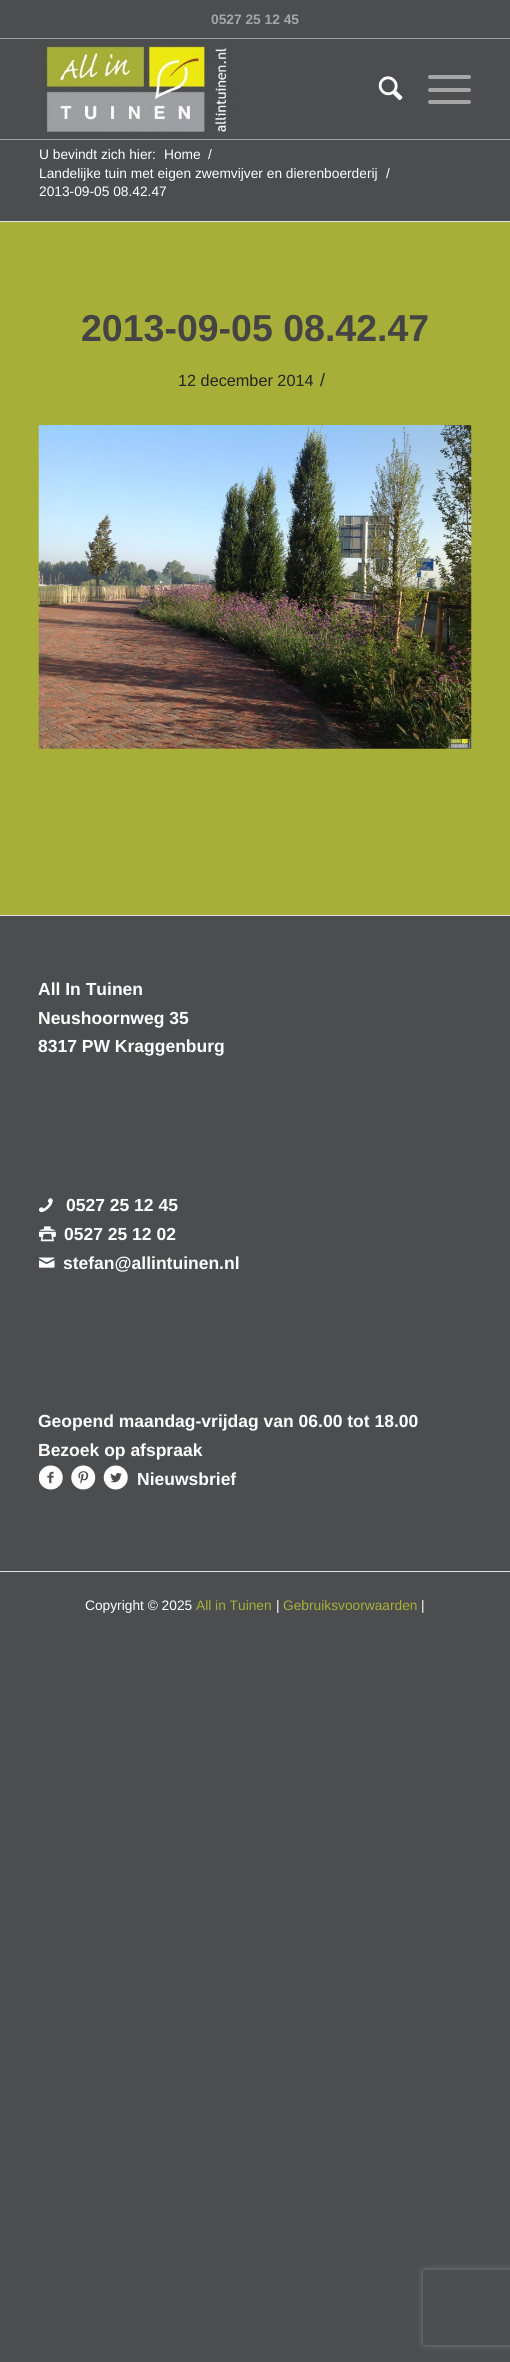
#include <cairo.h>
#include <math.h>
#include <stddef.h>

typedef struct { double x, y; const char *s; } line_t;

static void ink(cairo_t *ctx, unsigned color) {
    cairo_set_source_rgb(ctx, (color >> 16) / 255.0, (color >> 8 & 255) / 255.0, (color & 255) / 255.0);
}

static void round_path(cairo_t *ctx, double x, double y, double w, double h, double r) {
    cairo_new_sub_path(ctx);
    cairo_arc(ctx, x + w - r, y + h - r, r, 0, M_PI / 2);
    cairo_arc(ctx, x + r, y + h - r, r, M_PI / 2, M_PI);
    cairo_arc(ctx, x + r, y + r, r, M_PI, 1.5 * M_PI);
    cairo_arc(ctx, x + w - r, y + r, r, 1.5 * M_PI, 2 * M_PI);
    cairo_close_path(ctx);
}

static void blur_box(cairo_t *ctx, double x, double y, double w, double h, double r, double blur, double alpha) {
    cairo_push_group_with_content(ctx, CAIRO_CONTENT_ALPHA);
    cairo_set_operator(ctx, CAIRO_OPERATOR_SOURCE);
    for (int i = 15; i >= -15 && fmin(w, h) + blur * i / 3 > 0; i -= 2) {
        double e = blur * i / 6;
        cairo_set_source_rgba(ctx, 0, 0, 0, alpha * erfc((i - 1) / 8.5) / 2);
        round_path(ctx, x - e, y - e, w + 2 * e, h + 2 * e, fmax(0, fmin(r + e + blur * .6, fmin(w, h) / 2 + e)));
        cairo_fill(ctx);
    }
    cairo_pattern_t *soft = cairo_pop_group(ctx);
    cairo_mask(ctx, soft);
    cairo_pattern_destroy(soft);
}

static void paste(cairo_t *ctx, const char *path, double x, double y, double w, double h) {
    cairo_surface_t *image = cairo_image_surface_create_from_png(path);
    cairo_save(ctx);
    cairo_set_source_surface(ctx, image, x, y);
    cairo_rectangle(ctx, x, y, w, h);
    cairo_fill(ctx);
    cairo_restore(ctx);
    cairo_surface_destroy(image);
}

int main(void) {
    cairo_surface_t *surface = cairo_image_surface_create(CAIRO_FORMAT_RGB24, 510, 2362);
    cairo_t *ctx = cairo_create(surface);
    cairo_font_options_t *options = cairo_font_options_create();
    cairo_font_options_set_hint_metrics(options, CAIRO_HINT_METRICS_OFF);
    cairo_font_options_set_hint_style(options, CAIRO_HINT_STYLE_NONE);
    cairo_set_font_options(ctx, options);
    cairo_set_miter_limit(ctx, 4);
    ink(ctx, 0x4C4D4F);
    cairo_paint(ctx);
    ink(ctx, 0x9E9FA3);
    cairo_rectangle(ctx, 0, 38, 510, 1);
    cairo_fill(ctx);
    cairo_select_font_face(ctx, "Liberation Sans", CAIRO_FONT_SLANT_NORMAL, CAIRO_FONT_WEIGHT_BOLD);
    cairo_set_font_size(ctx, 13.75);
    ink(ctx, 0xA6A6A7);
    cairo_move_to(ctx, 211, 24);
    cairo_show_text(ctx, "0527 25 12 45");
    ink(ctx, 0x9E9FA3);
    cairo_rectangle(ctx, 0, 139, 510, 1);
    cairo_fill(ctx);
    paste(ctx, "media/1.png", 39, 39, 198, 93);
    paste(ctx, "media/2.png", 378, 76, 25, 25);
    ink(ctx, 0xA6A6A7);
    round_path(ctx, 428, 88, 43, 4, 2);
    cairo_fill(ctx);
    round_path(ctx, 428, 75, 43, 4, 2);
    cairo_fill(ctx);
    round_path(ctx, 428, 100, 43, 4, 2);
    cairo_fill(ctx);
    cairo_select_font_face(ctx, "Liberation Sans", CAIRO_FONT_SLANT_NORMAL, CAIRO_FONT_WEIGHT_NORMAL);
    ink(ctx, 0xFFFFFF);
    {
        static const line_t items[] = {
            {39, 159, "U bevindt zich hier:"},
            {164, 159, "Home"},
            {208, 159, "/"},
            {39, 178, "Landelijke tuin met eigen zwemvijver en dierenboerderij"},
            {386, 178, "/"},
            {39, 196, "2013-09-05 08.42.47"},
        };
        for (size_t i = 0; i < sizeof items / sizeof *items; i++) {
            cairo_move_to(ctx, items[i].x, items[i].y);
            cairo_show_text(ctx, items[i].s);
        }
    }
    ink(ctx, 0xA7AF38);
    cairo_rectangle(ctx, 0, 222, 510, 693);
    cairo_fill(ctx);
    ink(ctx, 0xE1E1E1);
    cairo_rectangle(ctx, 0, 221, 510, 1);
    cairo_fill(ctx);
    cairo_select_font_face(ctx, "Liberation Sans", CAIRO_FONT_SLANT_NORMAL, CAIRO_FONT_WEIGHT_BOLD);
    cairo_set_font_size(ctx, 37.5);
    ink(ctx, 0x444444);
    cairo_move_to(ctx, 81, 341);
    cairo_show_text(ctx, "2013-09-05 08.42.47");
    cairo_select_font_face(ctx, "Liberation Sans", CAIRO_FONT_SLANT_NORMAL, CAIRO_FONT_WEIGHT_NORMAL);
    cairo_set_font_size(ctx, 16.25);
    ink(ctx, 0x222722);
    cairo_move_to(ctx, 178, 386);
    cairo_show_text(ctx, "12 december 2014");
    cairo_set_font_size(ctx, 18);
    cairo_move_to(ctx, 320, 386);
    cairo_show_text(ctx, "/");
    paste(ctx, "media/3.png", 38, 425, 434, 324);
    ink(ctx, 0xE1E1E1);
    cairo_rectangle(ctx, 0, 915, 510, 1);
    cairo_fill(ctx);
    cairo_select_font_face(ctx, "Liberation Sans", CAIRO_FONT_SLANT_NORMAL, CAIRO_FONT_WEIGHT_BOLD);
    cairo_set_font_size(ctx, 17.5);
    ink(ctx, 0xFFFFFF);
    {
        static const line_t items[] = {
            {38, 995, "All In Tuinen"},
            {38, 1024, "Neushoornweg 35"},
            {38, 1052, "8317 PW Kraggenburg"},
        };
        for (size_t i = 0; i < sizeof items / sizeof *items; i++) {
            cairo_move_to(ctx, items[i].x, items[i].y);
            cairo_show_text(ctx, items[i].s);
        }
    }
    paste(ctx, "media/4.png", 39, 1198, 14, 15);
    cairo_move_to(ctx, 66, 1211);
    cairo_show_text(ctx, "0527 25 12 45");
    paste(ctx, "media/5.png", 39, 1226, 17, 16);
    cairo_move_to(ctx, 64, 1240);
    cairo_show_text(ctx, "0527 25 12 02");
    paste(ctx, "media/6.png", 39, 1257, 16, 11);
    {
        static const line_t items[] = {
            {63, 1269, "stefan@allintuinen.nl"},
            {38, 1427, "Geopend maandag-vrijdag van 06.00 tot 18.00"},
            {38, 1456, "Bezoek op afspraak"},
        };
        for (size_t i = 0; i < sizeof items / sizeof *items; i++) {
            cairo_move_to(ctx, items[i].x, items[i].y);
            cairo_show_text(ctx, items[i].s);
        }
    }
    paste(ctx, "media/7.png", 39, 1465, 24, 25);
    paste(ctx, "media/8.png", 71, 1465, 25, 25);
    paste(ctx, "media/9.png", 103, 1465, 25, 25);
    cairo_move_to(ctx, 137, 1485);
    cairo_show_text(ctx, "Nieuwsbrief");
    ink(ctx, 0xE1E1E1);
    cairo_rectangle(ctx, 0, 1571, 510, 1);
    cairo_fill(ctx);
    cairo_select_font_face(ctx, "Liberation Sans", CAIRO_FONT_SLANT_NORMAL, CAIRO_FONT_WEIGHT_NORMAL);
    cairo_set_font_size(ctx, 13.75);
    ink(ctx, 0xFFFFFF);
    cairo_move_to(ctx, 85, 1610);
    cairo_show_text(ctx, "Copyright © 2025");
    ink(ctx, 0xA7AF38);
    cairo_move_to(ctx, 196, 1610);
    cairo_show_text(ctx, "All in Tuinen");
    ink(ctx, 0xFFFFFF);
    cairo_move_to(ctx, 276, 1610);
    cairo_show_text(ctx, "|");
    ink(ctx, 0xA7AF38);
    cairo_move_to(ctx, 283, 1610);
    cairo_show_text(ctx, "Gebruiksvoorwaarden");
    ink(ctx, 0xFFFFFF);
    cairo_move_to(ctx, 421, 1610);
    cairo_show_text(ctx, "|");
    cairo_save(ctx);
    cairo_set_fill_rule(ctx, CAIRO_FILL_RULE_EVEN_ODD);
    cairo_new_path(ctx);
    cairo_move_to(ctx, 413, 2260);
    cairo_line_to(ctx, 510, 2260);
    cairo_line_to(ctx, 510, 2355);
    cairo_line_to(ctx, 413, 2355);
    cairo_close_path(ctx);
    cairo_move_to(ctx, 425.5, 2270);
    cairo_line_to(ctx, 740.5, 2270);
    cairo_curve_to(ctx, 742, 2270, 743, 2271, 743, 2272.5);
    cairo_line_to(ctx, 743, 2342.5);
    cairo_curve_to(ctx, 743, 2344, 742, 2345, 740.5, 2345);
    cairo_line_to(ctx, 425.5, 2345);
    cairo_curve_to(ctx, 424, 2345, 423, 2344, 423, 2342.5);
    cairo_line_to(ctx, 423, 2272.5);
    cairo_curve_to(ctx, 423, 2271, 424, 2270, 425.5, 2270);
    cairo_close_path(ctx);
    cairo_clip(ctx);
    ink(ctx, 0x808080);
    blur_box(ctx, 423, 2270, 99, 75, 2.5, 3, 1);
    cairo_restore(ctx);
    cairo_surface_write_to_png(surface, "image.png");
    cairo_font_options_destroy(options);
    cairo_destroy(ctx);
    cairo_surface_destroy(surface);
    return 0;
}
